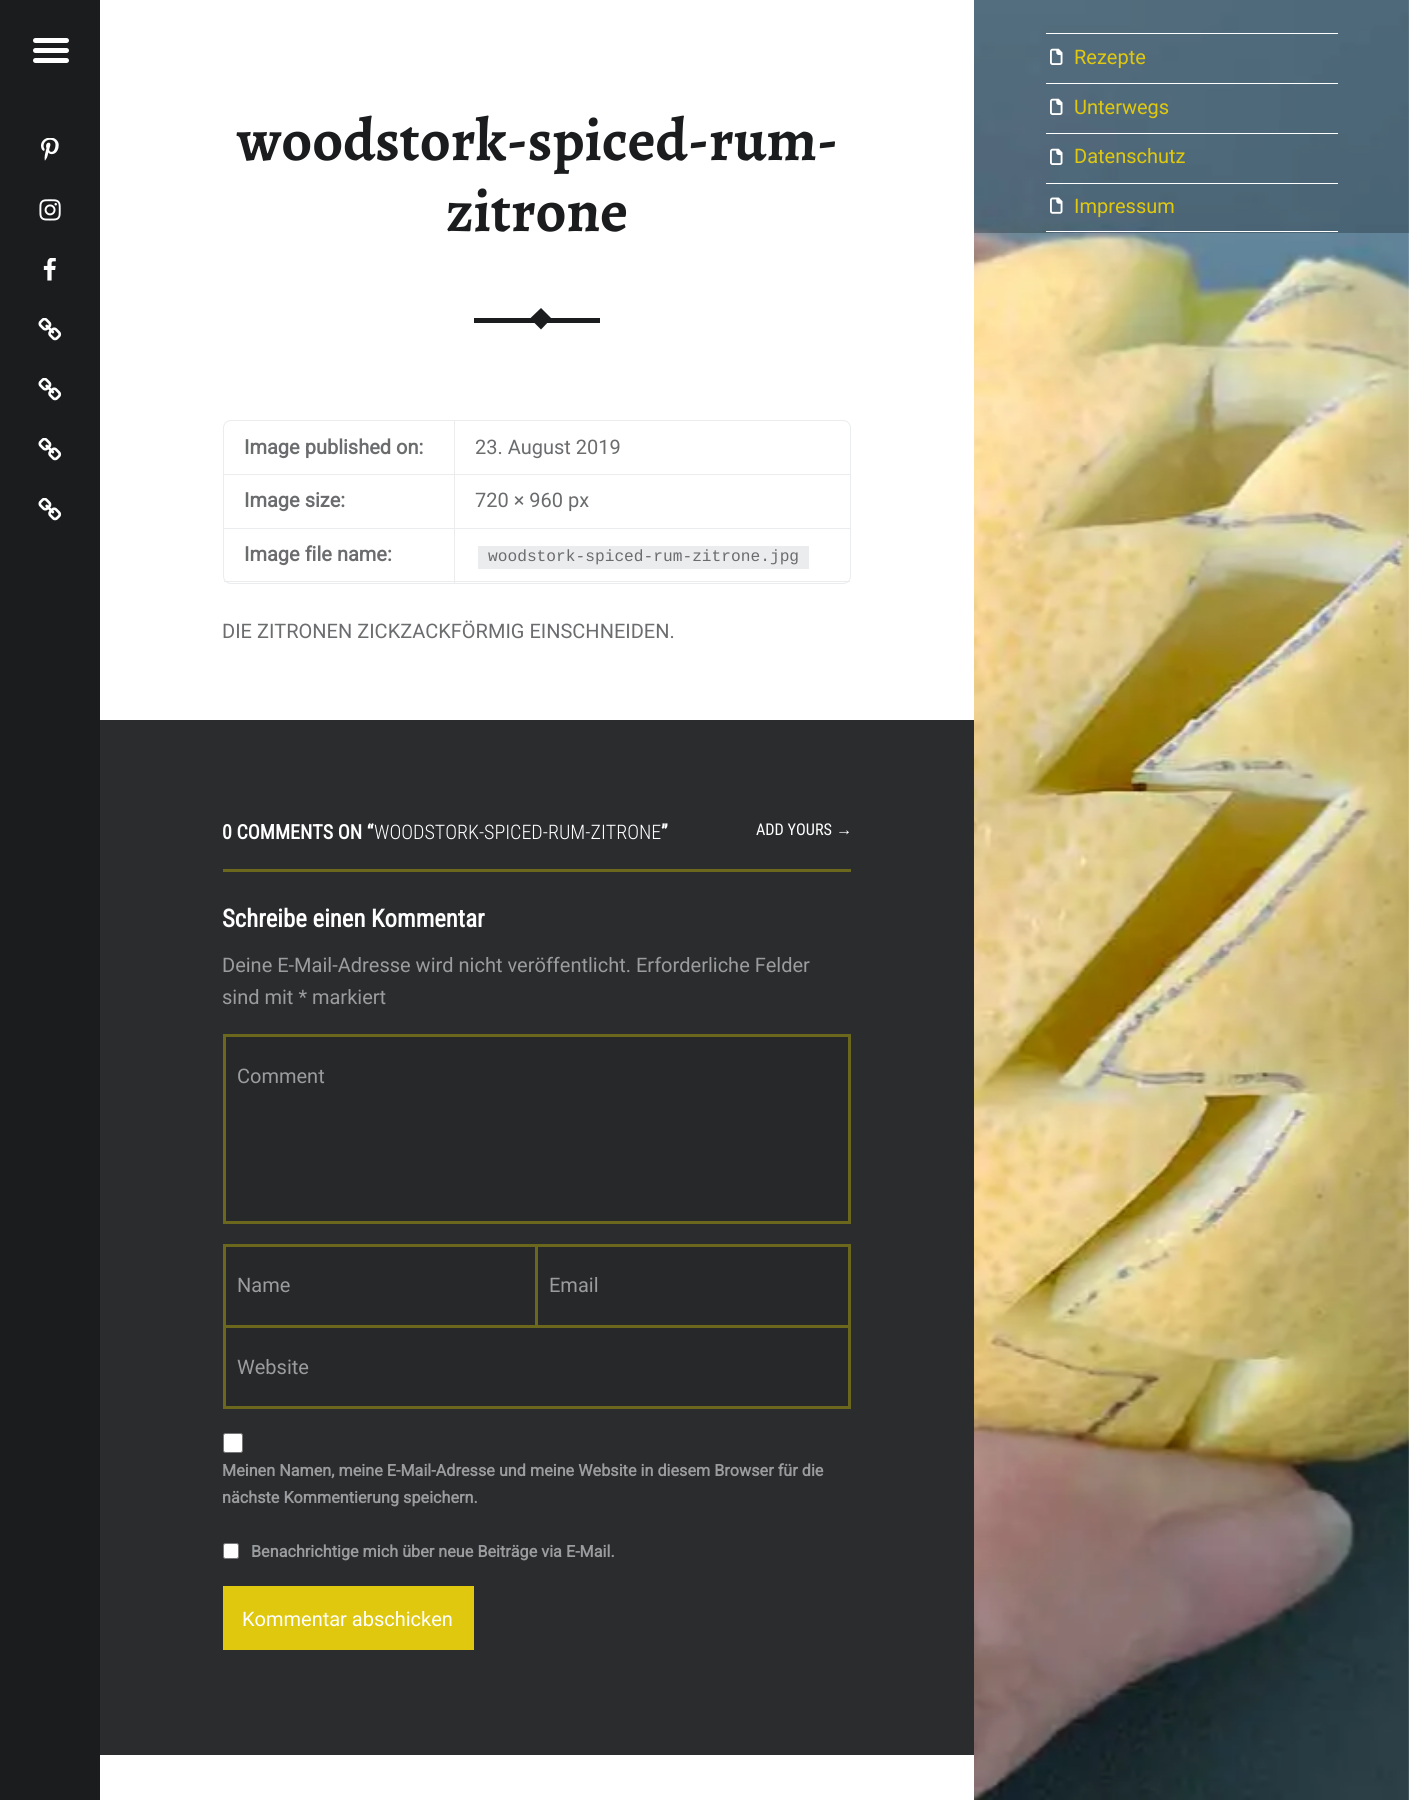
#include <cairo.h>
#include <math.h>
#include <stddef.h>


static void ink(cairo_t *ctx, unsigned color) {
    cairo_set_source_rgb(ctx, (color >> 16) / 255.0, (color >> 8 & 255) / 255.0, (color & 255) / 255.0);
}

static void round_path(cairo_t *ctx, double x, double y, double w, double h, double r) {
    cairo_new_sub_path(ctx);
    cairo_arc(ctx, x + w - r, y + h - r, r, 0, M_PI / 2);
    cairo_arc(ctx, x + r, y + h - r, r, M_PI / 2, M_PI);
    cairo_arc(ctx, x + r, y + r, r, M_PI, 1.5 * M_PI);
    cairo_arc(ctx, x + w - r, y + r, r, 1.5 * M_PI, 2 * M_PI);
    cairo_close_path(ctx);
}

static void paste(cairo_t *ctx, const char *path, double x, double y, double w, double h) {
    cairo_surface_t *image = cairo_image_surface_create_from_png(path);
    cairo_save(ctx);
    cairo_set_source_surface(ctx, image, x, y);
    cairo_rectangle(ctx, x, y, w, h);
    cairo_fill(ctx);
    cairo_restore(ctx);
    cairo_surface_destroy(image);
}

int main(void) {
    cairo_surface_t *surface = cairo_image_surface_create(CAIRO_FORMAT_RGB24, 1409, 1800);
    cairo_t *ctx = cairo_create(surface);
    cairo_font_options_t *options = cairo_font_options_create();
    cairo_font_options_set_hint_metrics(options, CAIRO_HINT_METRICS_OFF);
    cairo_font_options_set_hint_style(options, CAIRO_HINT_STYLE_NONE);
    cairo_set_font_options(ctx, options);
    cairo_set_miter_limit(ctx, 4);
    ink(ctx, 0xFFFFFF);
    cairo_paint(ctx);
    cairo_select_font_face(ctx, "Alegreya", CAIRO_FONT_SLANT_NORMAL, CAIRO_FONT_WEIGHT_BOLD);
    cairo_set_font_size(ctx, 60);
    ink(ctx, 0x1A1C1E);
    cairo_move_to(ctx, 237, 160);
    cairo_show_text(ctx, "woodstork-spiced-rum-");
    cairo_move_to(ctx, 446, 231);
    cairo_show_text(ctx, "zitrone");
    cairo_rectangle(ctx, 474, 318, 126, 5);
    cairo_fill(ctx);
    cairo_new_path(ctx);
    cairo_move_to(ctx, 541, 308);
    cairo_line_to(ctx, 551.5, 318.5);
    cairo_line_to(ctx, 541, 329.5);
    cairo_line_to(ctx, 530, 318.5);
    cairo_close_path(ctx);
    cairo_fill(ctx);
    round_path(ctx, 223.5, 420.5, 627, 163, 7.5);
    ink(ctx, 0xEAECEE);
    cairo_set_line_width(ctx, 1);
    cairo_stroke(ctx);
    cairo_rectangle(ctx, 224, 474, 626, 1);
    cairo_fill(ctx);
    cairo_select_font_face(ctx, "Roboto", CAIRO_FONT_SLANT_NORMAL, CAIRO_FONT_WEIGHT_BOLD);
    cairo_set_font_size(ctx, 20);
    ink(ctx, 0x6A6C6E);
    cairo_move_to(ctx, 244, 454);
    cairo_show_text(ctx, "Image published on:");
    ink(ctx, 0xEAECEE);
    cairo_rectangle(ctx, 454, 421, 1, 54);
    cairo_fill(ctx);
    cairo_select_font_face(ctx, "Roboto", CAIRO_FONT_SLANT_NORMAL, CAIRO_FONT_WEIGHT_NORMAL);
    ink(ctx, 0x6A6C6E);
    cairo_move_to(ctx, 475, 454);
    cairo_show_text(ctx, "23. August 2019");
    ink(ctx, 0xEAECEE);
    cairo_rectangle(ctx, 224, 528, 626, 1);
    cairo_fill(ctx);
    cairo_select_font_face(ctx, "Roboto", CAIRO_FONT_SLANT_NORMAL, CAIRO_FONT_WEIGHT_BOLD);
    ink(ctx, 0x6A6C6E);
    cairo_move_to(ctx, 244, 507);
    cairo_show_text(ctx, "Image size:");
    ink(ctx, 0xEAECEE);
    cairo_rectangle(ctx, 454, 475, 1, 54);
    cairo_fill(ctx);
    cairo_select_font_face(ctx, "Roboto", CAIRO_FONT_SLANT_NORMAL, CAIRO_FONT_WEIGHT_NORMAL);
    ink(ctx, 0x6A6C6E);
    cairo_move_to(ctx, 475, 507);
    cairo_show_text(ctx, "720 × 960 px");
    ink(ctx, 0xEAECEE);
    cairo_rectangle(ctx, 224, 581, 626, 1);
    cairo_fill(ctx);
    cairo_select_font_face(ctx, "Roboto", CAIRO_FONT_SLANT_NORMAL, CAIRO_FONT_WEIGHT_BOLD);
    ink(ctx, 0x6A6C6E);
    cairo_move_to(ctx, 244, 561);
    cairo_show_text(ctx, "Image file name:");
    ink(ctx, 0xEAECEE);
    cairo_rectangle(ctx, 454, 529, 1, 54);
    cairo_fill(ctx);
    cairo_rectangle(ctx, 478, 546, 331, 23);
    cairo_fill(ctx);
    cairo_select_font_face(ctx, "Liberation Mono", CAIRO_FONT_SLANT_NORMAL, CAIRO_FONT_WEIGHT_NORMAL);
    cairo_set_font_size(ctx, 16.2);
    ink(ctx, 0x6A6C6E);
    cairo_move_to(ctx, 488, 561);
    cairo_show_text(ctx, "woodstork-spiced-rum-zitrone.jpg");
    cairo_select_font_face(ctx, "Roboto", CAIRO_FONT_SLANT_NORMAL, CAIRO_FONT_WEIGHT_NORMAL);
    cairo_set_font_size(ctx, 20);
    cairo_move_to(ctx, 222, 638);
    cairo_show_text(ctx, "DIE ZITRONEN ZICKZACKFÖRMIG EINSCHNEIDEN.");
    ink(ctx, 0x2A2C2E);
    cairo_rectangle(ctx, 100, 720, 874, 1035);
    cairo_fill(ctx);
    cairo_select_font_face(ctx, "Roboto Condensed", CAIRO_FONT_SLANT_NORMAL, CAIRO_FONT_WEIGHT_BOLD);
    ink(ctx, 0xFFFFFF);
    cairo_move_to(ctx, 222, 839);
    cairo_show_text(ctx, "0 COMMENTS ON “");
    cairo_select_font_face(ctx, "Roboto Condensed Light", CAIRO_FONT_SLANT_NORMAL, CAIRO_FONT_WEIGHT_NORMAL);
    cairo_move_to(ctx, 374, 839);
    cairo_show_text(ctx, "WOODSTORK-SPICED-RUM-ZITRONE");
    cairo_select_font_face(ctx, "Roboto Condensed", CAIRO_FONT_SLANT_NORMAL, CAIRO_FONT_WEIGHT_BOLD);
    cairo_move_to(ctx, 661, 839);
    cairo_show_text(ctx, "”");
    cairo_select_font_face(ctx, "Roboto Condensed", CAIRO_FONT_SLANT_NORMAL, CAIRO_FONT_WEIGHT_NORMAL);
    cairo_set_font_size(ctx, 16.2);
    cairo_move_to(ctx, 756, 835);
    cairo_show_text(ctx, "ADD YOURS");
    cairo_select_font_face(ctx, "Liberation Sans", CAIRO_FONT_SLANT_NORMAL, CAIRO_FONT_WEIGHT_NORMAL);
    cairo_move_to(ctx, 836, 835);
    cairo_show_text(ctx, "→");
    ink(ctx, 0x6B671D);
    cairo_rectangle(ctx, 223, 869, 628, 3);
    cairo_fill(ctx);
    cairo_select_font_face(ctx, "Roboto Condensed", CAIRO_FONT_SLANT_NORMAL, CAIRO_FONT_WEIGHT_BOLD);
    cairo_set_font_size(ctx, 24.75);
    ink(ctx, 0xFFFFFF);
    cairo_move_to(ctx, 222, 927);
    cairo_show_text(ctx, "Schreibe einen Kommentar");
    cairo_select_font_face(ctx, "Roboto", CAIRO_FONT_SLANT_NORMAL, CAIRO_FONT_WEIGHT_NORMAL);
    cairo_set_font_size(ctx, 20);
    ink(ctx, 0x9A9C9E);
    cairo_move_to(ctx, 222, 972);
    cairo_show_text(ctx, "Deine E-Mail-Adresse wird nicht veröffentlicht. Erforderliche Felder");
    cairo_move_to(ctx, 222, 1004);
    cairo_show_text(ctx, "sind mit * markiert");
    ink(ctx, 0x262829);
    cairo_rectangle(ctx, 224.5, 1035.5, 625, 187);
    cairo_fill_preserve(ctx);
    ink(ctx, 0x6B671D);
    cairo_set_line_width(ctx, 3);
    cairo_stroke(ctx);
    ink(ctx, 0x9A9C9E);
    cairo_move_to(ctx, 237, 1083);
    cairo_show_text(ctx, "Comment");
    ink(ctx, 0x262829);
    cairo_rectangle(ctx, 224.5, 1245.5, 312, 81);
    cairo_fill_preserve(ctx);
    ink(ctx, 0x6B671D);
    cairo_stroke(ctx);
    ink(ctx, 0x9A9C9E);
    cairo_move_to(ctx, 237, 1292);
    cairo_show_text(ctx, "Name");
    cairo_set_source_rgba(ctx, 0, 0, 0, 0.1);
    cairo_rectangle(ctx, 536.5, 1245.5, 313, 81);
    cairo_fill_preserve(ctx);
    ink(ctx, 0x6B671D);
    cairo_stroke(ctx);
    ink(ctx, 0x9A9C9E);
    cairo_move_to(ctx, 549, 1292);
    cairo_show_text(ctx, "Email");
    cairo_set_source_rgba(ctx, 0, 0, 0, 0.1);
    cairo_rectangle(ctx, 224.5, 1326.5, 625, 81);
    cairo_fill_preserve(ctx);
    ink(ctx, 0x6B671D);
    cairo_stroke(ctx);
    ink(ctx, 0x9A9C9E);
    cairo_move_to(ctx, 237, 1374);
    cairo_show_text(ctx, "Website");
    ink(ctx, 0xFFFFFF);
    round_path(ctx, 223.5, 1433.5, 19, 19, 2);
    cairo_fill_preserve(ctx);
    ink(ctx, 0x767676);
    cairo_set_line_width(ctx, 1);
    cairo_stroke(ctx);
    cairo_select_font_face(ctx, "Roboto", CAIRO_FONT_SLANT_NORMAL, CAIRO_FONT_WEIGHT_BOLD);
    cairo_set_font_size(ctx, 16.2);
    ink(ctx, 0x9A9C9E);
    cairo_move_to(ctx, 222, 1476);
    cairo_show_text(ctx, "Meinen Namen, meine E-Mail-Adresse und meine Website in diesem Browser für die");
    cairo_move_to(ctx, 222, 1503);
    cairo_show_text(ctx, "nächste Kommentierung speichern.");
    ink(ctx, 0xFFFFFF);
    round_path(ctx, 223.5, 1543.5, 15, 15, 2);
    cairo_fill_preserve(ctx);
    ink(ctx, 0x767676);
    cairo_stroke(ctx);
    ink(ctx, 0x9A9C9E);
    cairo_move_to(ctx, 251, 1557);
    cairo_show_text(ctx, "Benachrichtige mich über neue Beiträge via E-Mail.");
    ink(ctx, 0xE0C80F);
    cairo_rectangle(ctx, 223, 1586, 251, 64);
    cairo_fill(ctx);
    cairo_select_font_face(ctx, "Roboto", CAIRO_FONT_SLANT_NORMAL, CAIRO_FONT_WEIGHT_NORMAL);
    cairo_set_font_size(ctx, 20);
    ink(ctx, 0xFFFFFF);
    cairo_move_to(ctx, 242, 1626);
    cairo_show_text(ctx, "Kommentar abschicken");
    paste(ctx, "media/1.png", 974, 0, 435, 1800);
    ink(ctx, 0x1A1C1E);
    cairo_rectangle(ctx, 0, 0, 100, 1800);
    cairo_fill(ctx);
    ink(ctx, 0xFFFFFF);
    round_path(ctx, 33, 38, 36, 5, 2.5);
    cairo_fill(ctx);
    round_path(ctx, 33, 48, 36, 5, 2.5);
    cairo_fill(ctx);
    round_path(ctx, 33, 58, 36, 5, 2.5);
    cairo_fill(ctx);
    paste(ctx, "media/2.png", 41, 138, 18, 23);
    paste(ctx, "media/3.png", 39, 199, 22, 22);
    paste(ctx, "media/4.png", 43, 258, 13, 23);
    paste(ctx, "media/5.png", 38, 318, 24, 23);
    paste(ctx, "media/5.png", 38, 378, 24, 23);
    paste(ctx, "media/5.png", 38, 438, 24, 23);
    paste(ctx, "media/5.png", 38, 498, 24, 23);
    cairo_set_source_rgba(ctx, 0, 0, 0, 0.25);
    cairo_rectangle(ctx, 974, 0, 435, 233);
    cairo_fill(ctx);
    ink(ctx, 0xFFFFFF);
    cairo_rectangle(ctx, 1046, 33, 292, 1);
    cairo_fill(ctx);
    cairo_rectangle(ctx, 1046, 83, 292, 1);
    cairo_fill(ctx);
    paste(ctx, "media/6.png", 1050, 48, 13, 17);
    ink(ctx, 0xE0C80F);
    cairo_move_to(ctx, 1074, 64);
    cairo_show_text(ctx, "Rezepte");
    ink(ctx, 0xFFFFFF);
    cairo_rectangle(ctx, 1046, 133, 292, 1);
    cairo_fill(ctx);
    paste(ctx, "media/7.png", 1050, 98, 13, 17);
    ink(ctx, 0xE0C80F);
    cairo_move_to(ctx, 1074, 114);
    cairo_show_text(ctx, "Unterwegs");
    ink(ctx, 0xFFFFFF);
    cairo_rectangle(ctx, 1046, 183, 292, 1);
    cairo_fill(ctx);
    paste(ctx, "media/8.png", 1050, 148, 13, 17);
    ink(ctx, 0xE0C80F);
    cairo_move_to(ctx, 1074, 163);
    cairo_show_text(ctx, "Datenschutz");
    ink(ctx, 0xFFFFFF);
    cairo_rectangle(ctx, 1046, 231, 292, 1);
    cairo_fill(ctx);
    paste(ctx, "media/9.png", 1050, 197, 13, 17);
    ink(ctx, 0xE0C80F);
    cairo_move_to(ctx, 1074, 213);
    cairo_show_text(ctx, "Impressum");
    cairo_surface_write_to_png(surface, "image.png");
    cairo_font_options_destroy(options);
    cairo_destroy(ctx);
    cairo_surface_destroy(surface);
    return 0;
}
